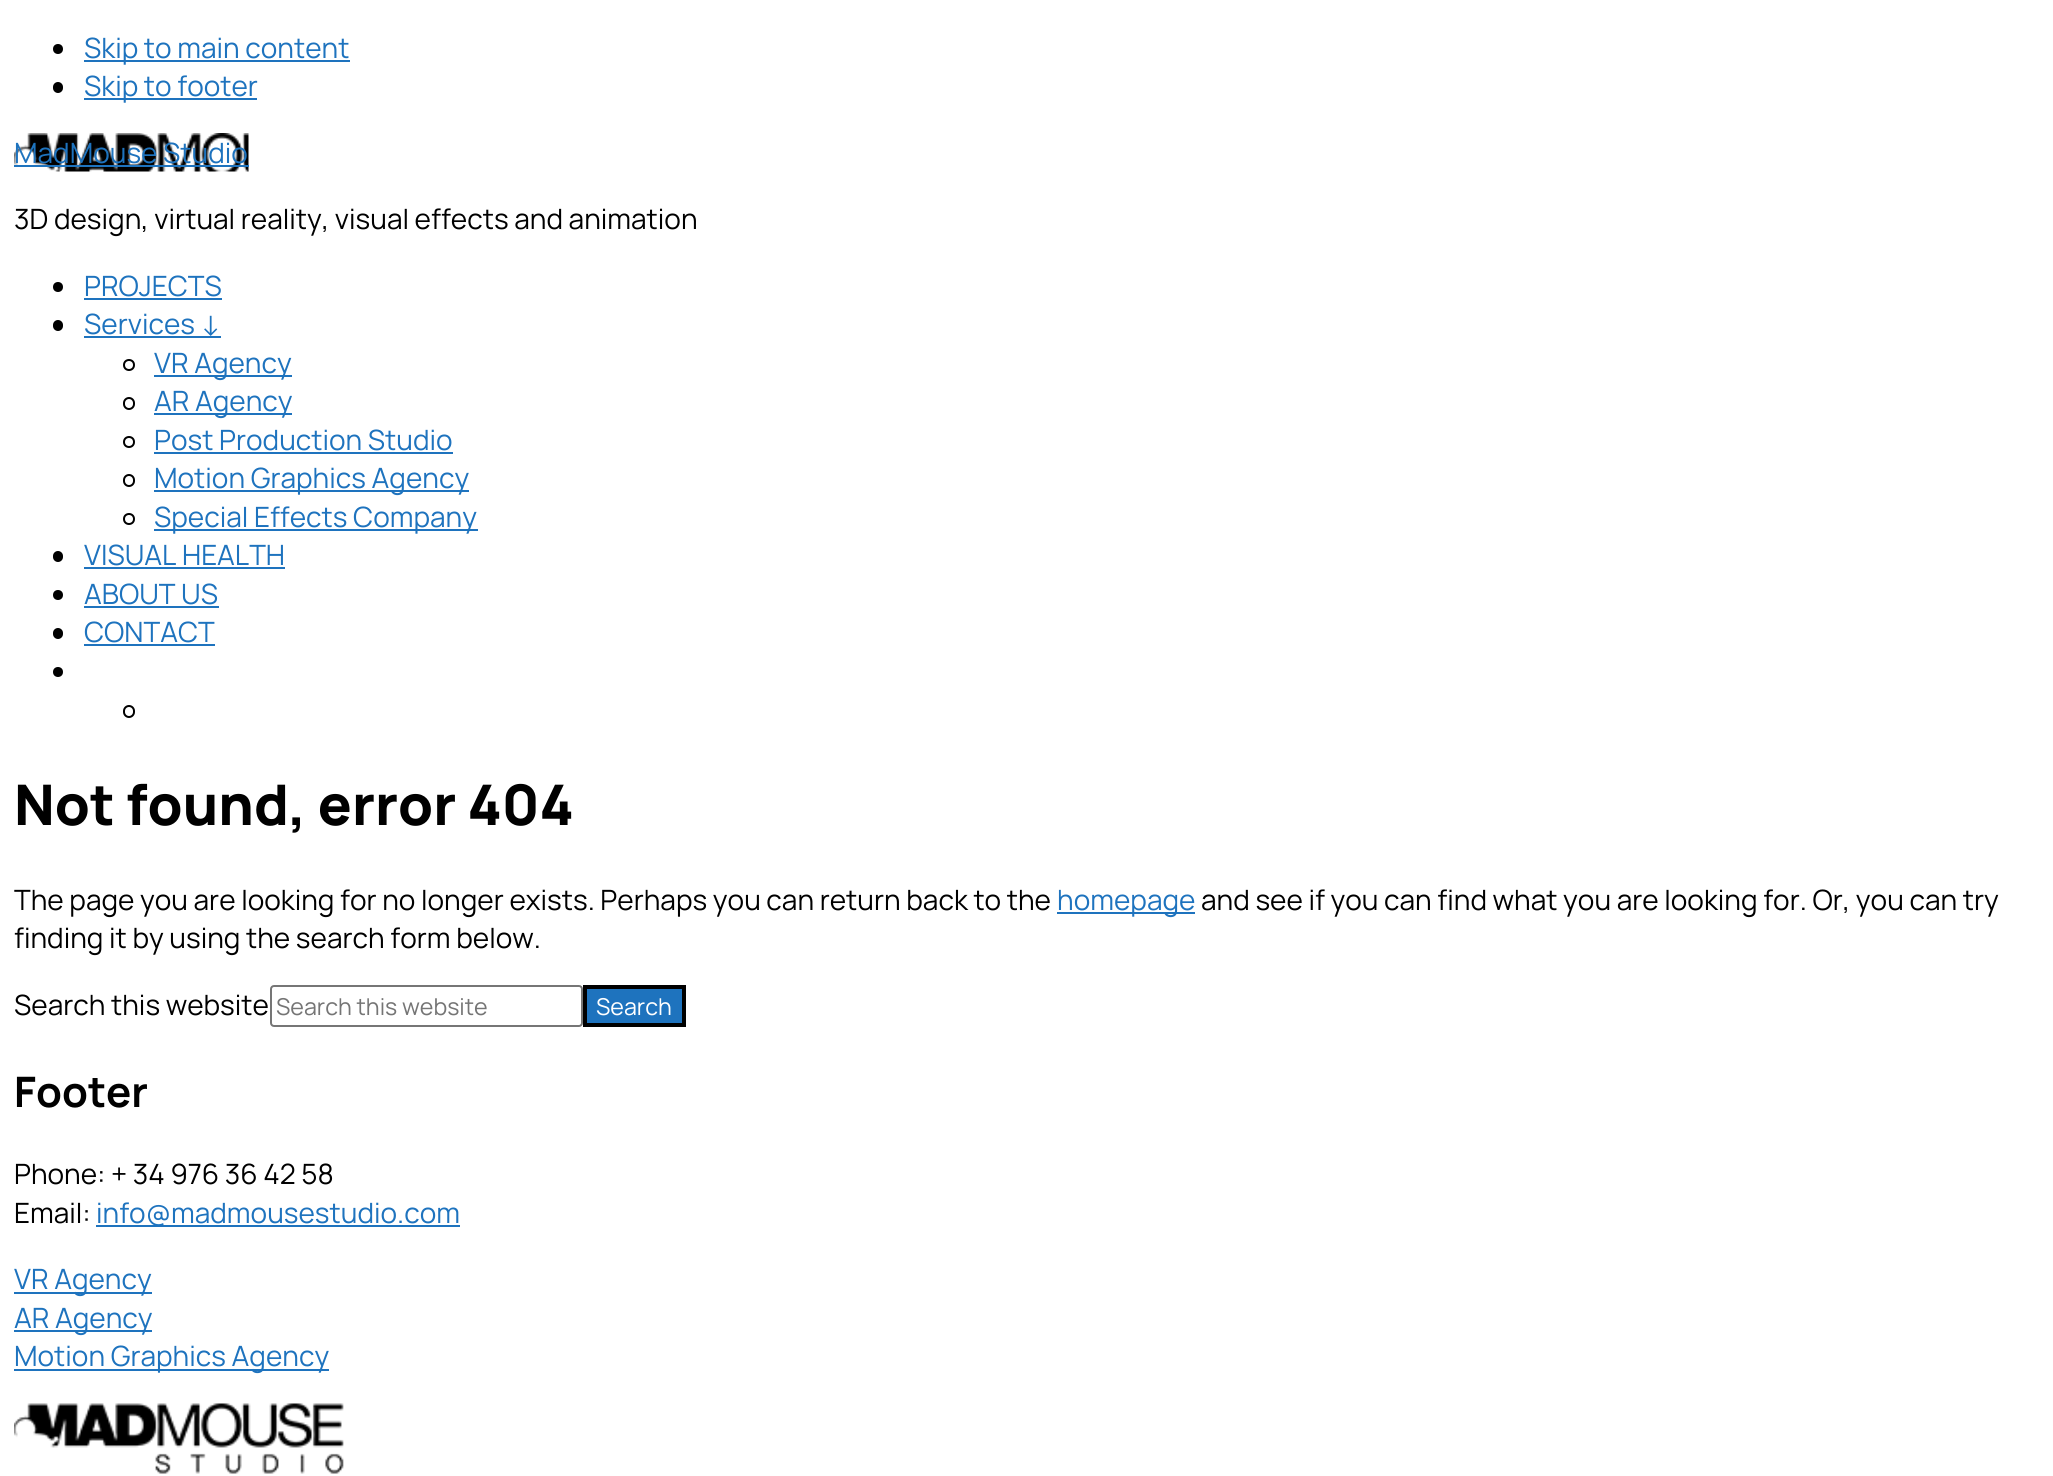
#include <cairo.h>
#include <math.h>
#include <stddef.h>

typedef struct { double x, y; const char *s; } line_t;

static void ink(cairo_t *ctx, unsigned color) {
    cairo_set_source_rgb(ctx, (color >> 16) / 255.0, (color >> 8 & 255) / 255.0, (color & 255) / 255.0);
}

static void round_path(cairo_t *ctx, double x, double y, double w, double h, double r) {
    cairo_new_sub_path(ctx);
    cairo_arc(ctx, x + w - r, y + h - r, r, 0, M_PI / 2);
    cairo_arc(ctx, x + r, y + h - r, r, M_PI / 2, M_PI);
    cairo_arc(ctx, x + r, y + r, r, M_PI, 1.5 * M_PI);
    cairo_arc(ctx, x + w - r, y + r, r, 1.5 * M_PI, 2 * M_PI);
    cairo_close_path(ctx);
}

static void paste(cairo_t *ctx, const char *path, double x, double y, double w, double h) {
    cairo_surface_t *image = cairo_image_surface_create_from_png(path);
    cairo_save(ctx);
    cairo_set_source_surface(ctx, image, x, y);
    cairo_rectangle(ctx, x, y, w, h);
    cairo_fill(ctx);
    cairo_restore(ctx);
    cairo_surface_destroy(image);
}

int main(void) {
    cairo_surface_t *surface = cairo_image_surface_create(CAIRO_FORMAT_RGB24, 2053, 1476);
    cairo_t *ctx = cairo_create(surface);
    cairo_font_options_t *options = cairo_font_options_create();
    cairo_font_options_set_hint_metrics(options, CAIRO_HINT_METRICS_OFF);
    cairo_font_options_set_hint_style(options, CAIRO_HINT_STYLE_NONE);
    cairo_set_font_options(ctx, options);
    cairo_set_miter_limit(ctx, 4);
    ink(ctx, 0xFFFFFF);
    cairo_paint(ctx);
    ink(ctx, 0x000000);
    cairo_arc(ctx, 58, 49, 5, 0, 2 * M_PI);
    cairo_fill(ctx);
    ink(ctx, 0x1E73BE);
    cairo_rectangle(ctx, 84, 60, 266, 2);
    cairo_fill(ctx);
    cairo_select_font_face(ctx, "Manrope", CAIRO_FONT_SLANT_NORMAL, CAIRO_FONT_WEIGHT_NORMAL);
    cairo_set_font_size(ctx, 28);
    cairo_move_to(ctx, 84, 58);
    cairo_show_text(ctx, "Skip to main content");
    ink(ctx, 0x000000);
    round_path(ctx, 53, 82, 10, 11, 5);
    cairo_fill(ctx);
    ink(ctx, 0x1E73BE);
    cairo_rectangle(ctx, 84, 98, 173, 2);
    cairo_fill(ctx);
    cairo_move_to(ctx, 84, 96);
    cairo_show_text(ctx, "Skip to footer");
    paste(ctx, "media/1.png", 14, 133, 235, 39);
    cairo_move_to(ctx, 14, 163);
    cairo_show_text(ctx, "MadMouse Studio");
    cairo_rectangle(ctx, 14, 165, 235, 2);
    cairo_fill(ctx);
    ink(ctx, 0x000000);
    cairo_move_to(ctx, 14, 229);
    cairo_show_text(ctx, "3D design, virtual reality, visual effects and animation");
    cairo_new_path(ctx);
    cairo_arc(ctx, 58, 287, 5, 0, 2 * M_PI);
    cairo_fill(ctx);
    ink(ctx, 0x1E73BE);
    cairo_move_to(ctx, 84, 296);
    cairo_show_text(ctx, "PROJECTS");
    cairo_rectangle(ctx, 84, 298, 138, 2);
    cairo_fill(ctx);
    ink(ctx, 0x000000);
    round_path(ctx, 53, 320, 10, 11, 5);
    cairo_fill(ctx);
    ink(ctx, 0x1E73BE);
    cairo_move_to(ctx, 84, 334);
    cairo_show_text(ctx, "Services ↓");
    cairo_rectangle(ctx, 84, 336, 137, 2);
    cairo_fill(ctx);
    cairo_arc(ctx, 129, 365, 5, 0, 2 * M_PI);
    ink(ctx, 0x000000);
    cairo_stroke(ctx);
    ink(ctx, 0x1E73BE);
    cairo_rectangle(ctx, 154, 375, 138, 2);
    cairo_fill(ctx);
    cairo_move_to(ctx, 154, 373);
    cairo_show_text(ctx, "VR Agency");
    round_path(ctx, 124, 398, 10, 11, 5);
    ink(ctx, 0x000000);
    cairo_stroke(ctx);
    ink(ctx, 0x1E73BE);
    cairo_rectangle(ctx, 154, 413, 138, 2);
    cairo_fill(ctx);
    cairo_move_to(ctx, 154, 411);
    cairo_show_text(ctx, "AR Agency");
    cairo_new_path(ctx);
    cairo_arc(ctx, 129, 442, 5, 0, 2 * M_PI);
    ink(ctx, 0x000000);
    cairo_stroke(ctx);
    ink(ctx, 0x1E73BE);
    cairo_move_to(ctx, 154, 450);
    cairo_show_text(ctx, "Post Production Studio");
    cairo_rectangle(ctx, 154, 452, 299, 2);
    cairo_fill(ctx);
    round_path(ctx, 124, 475, 10, 11, 5);
    ink(ctx, 0x000000);
    cairo_stroke(ctx);
    ink(ctx, 0x1E73BE);
    cairo_rectangle(ctx, 154, 490, 315, 2);
    cairo_fill(ctx);
    cairo_move_to(ctx, 154, 488);
    cairo_show_text(ctx, "Motion Graphics Agency");
    cairo_new_path(ctx);
    cairo_arc(ctx, 129, 519, 5, 0, 2 * M_PI);
    ink(ctx, 0x000000);
    cairo_stroke(ctx);
    ink(ctx, 0x1E73BE);
    cairo_rectangle(ctx, 154, 529, 324, 2);
    cairo_fill(ctx);
    cairo_move_to(ctx, 154, 527);
    cairo_show_text(ctx, "Special Effects Company");
    ink(ctx, 0x000000);
    round_path(ctx, 53, 551, 10, 11, 5);
    cairo_fill(ctx);
    ink(ctx, 0x1E73BE);
    cairo_move_to(ctx, 84, 565);
    cairo_show_text(ctx, "VISUAL HEALTH");
    cairo_rectangle(ctx, 84, 567, 201, 2);
    cairo_fill(ctx);
    ink(ctx, 0x000000);
    cairo_arc(ctx, 58, 595, 5, 0, 2 * M_PI);
    cairo_fill(ctx);
    ink(ctx, 0x1E73BE);
    cairo_move_to(ctx, 84, 604);
    cairo_show_text(ctx, "ABOUT US");
    cairo_rectangle(ctx, 84, 606, 135, 2);
    cairo_fill(ctx);
    ink(ctx, 0x000000);
    round_path(ctx, 53, 628, 10, 11, 5);
    cairo_fill(ctx);
    ink(ctx, 0x1E73BE);
    cairo_move_to(ctx, 84, 642);
    cairo_show_text(ctx, "CONTACT");
    cairo_rectangle(ctx, 84, 644, 131, 2);
    cairo_fill(ctx);
    ink(ctx, 0x000000);
    cairo_arc(ctx, 58, 672, 5, 0, 2 * M_PI);
    cairo_fill(ctx);
    round_path(ctx, 124, 706, 10, 11, 5);
    cairo_stroke(ctx);
    cairo_select_font_face(ctx, "Manrope ExtraBold", CAIRO_FONT_SLANT_NORMAL, CAIRO_FONT_WEIGHT_NORMAL);
    cairo_set_font_size(ctx, 56);
    cairo_move_to(ctx, 14, 825);
    cairo_show_text(ctx, "Not found, error 404");
    cairo_select_font_face(ctx, "Manrope", CAIRO_FONT_SLANT_NORMAL, CAIRO_FONT_WEIGHT_NORMAL);
    cairo_set_font_size(ctx, 28);
    cairo_move_to(ctx, 14, 910);
    cairo_show_text(ctx, "The page you are looking for no longer exists. Perhaps you can return back to the");
    ink(ctx, 0x1E73BE);
    cairo_rectangle(ctx, 1057, 912, 138, 2);
    cairo_fill(ctx);
    cairo_move_to(ctx, 1057, 910);
    cairo_show_text(ctx, "homepage");
    ink(ctx, 0x000000);
    {
        static const line_t items[] = {
            {1201, 910, "and see if you can find what you are looking for. Or, you can try"},
            {14, 948, "finding it by using the search form below."},
            {14, 1015, "Search this website"},
        };
        for (size_t i = 0; i < sizeof items / sizeof *items; i++) {
            cairo_move_to(ctx, items[i].x, items[i].y);
            cairo_show_text(ctx, items[i].s);
        }
    }
    round_path(ctx, 271, 986, 311, 40, 3);
    ink(ctx, 0x767676);
    cairo_stroke(ctx);
    cairo_set_font_size(ctx, 23.25);
    ink(ctx, 0x757575);
    cairo_move_to(ctx, 276, 1015);
    cairo_show_text(ctx, "Search this website");
    ink(ctx, 0x1E73BE);
    cairo_rectangle(ctx, 585, 987, 99, 38);
    cairo_fill_preserve(ctx);
    ink(ctx, 0x000000);
    cairo_set_line_width(ctx, 4);
    cairo_stroke(ctx);
    ink(ctx, 0xFFFFFF);
    cairo_move_to(ctx, 596, 1015);
    cairo_show_text(ctx, "Search");
    cairo_select_font_face(ctx, "Manrope", CAIRO_FONT_SLANT_NORMAL, CAIRO_FONT_WEIGHT_BOLD);
    cairo_set_font_size(ctx, 42);
    ink(ctx, 0x000000);
    cairo_move_to(ctx, 14, 1107);
    cairo_show_text(ctx, "Footer");
    cairo_select_font_face(ctx, "Manrope", CAIRO_FONT_SLANT_NORMAL, CAIRO_FONT_WEIGHT_NORMAL);
    cairo_set_font_size(ctx, 28);
    cairo_move_to(ctx, 14, 1184);
    cairo_show_text(ctx, "Phone: + 34 976 36 42 58");
    cairo_move_to(ctx, 14, 1223);
    cairo_show_text(ctx, "Email:");
    ink(ctx, 0x1E73BE);
    cairo_rectangle(ctx, 96, 1225, 364, 2);
    cairo_fill(ctx);
    cairo_move_to(ctx, 96, 1223);
    cairo_show_text(ctx, "info@madmousestudio.com");
    cairo_rectangle(ctx, 14, 1292, 138, 2);
    cairo_fill(ctx);
    cairo_move_to(ctx, 14, 1289);
    cairo_show_text(ctx, "VR Agency");
    cairo_rectangle(ctx, 14, 1330, 138, 2);
    cairo_fill(ctx);
    cairo_move_to(ctx, 14, 1328);
    cairo_show_text(ctx, "AR Agency");
    cairo_rectangle(ctx, 14, 1369, 315, 2);
    cairo_fill(ctx);
    cairo_move_to(ctx, 14, 1366);
    cairo_show_text(ctx, "Motion Graphics Agency");
    paste(ctx, "media/2.png", 14, 1403, 330, 71);
    cairo_surface_write_to_png(surface, "image.png");
    cairo_font_options_destroy(options);
    cairo_destroy(ctx);
    cairo_surface_destroy(surface);
    return 0;
}
